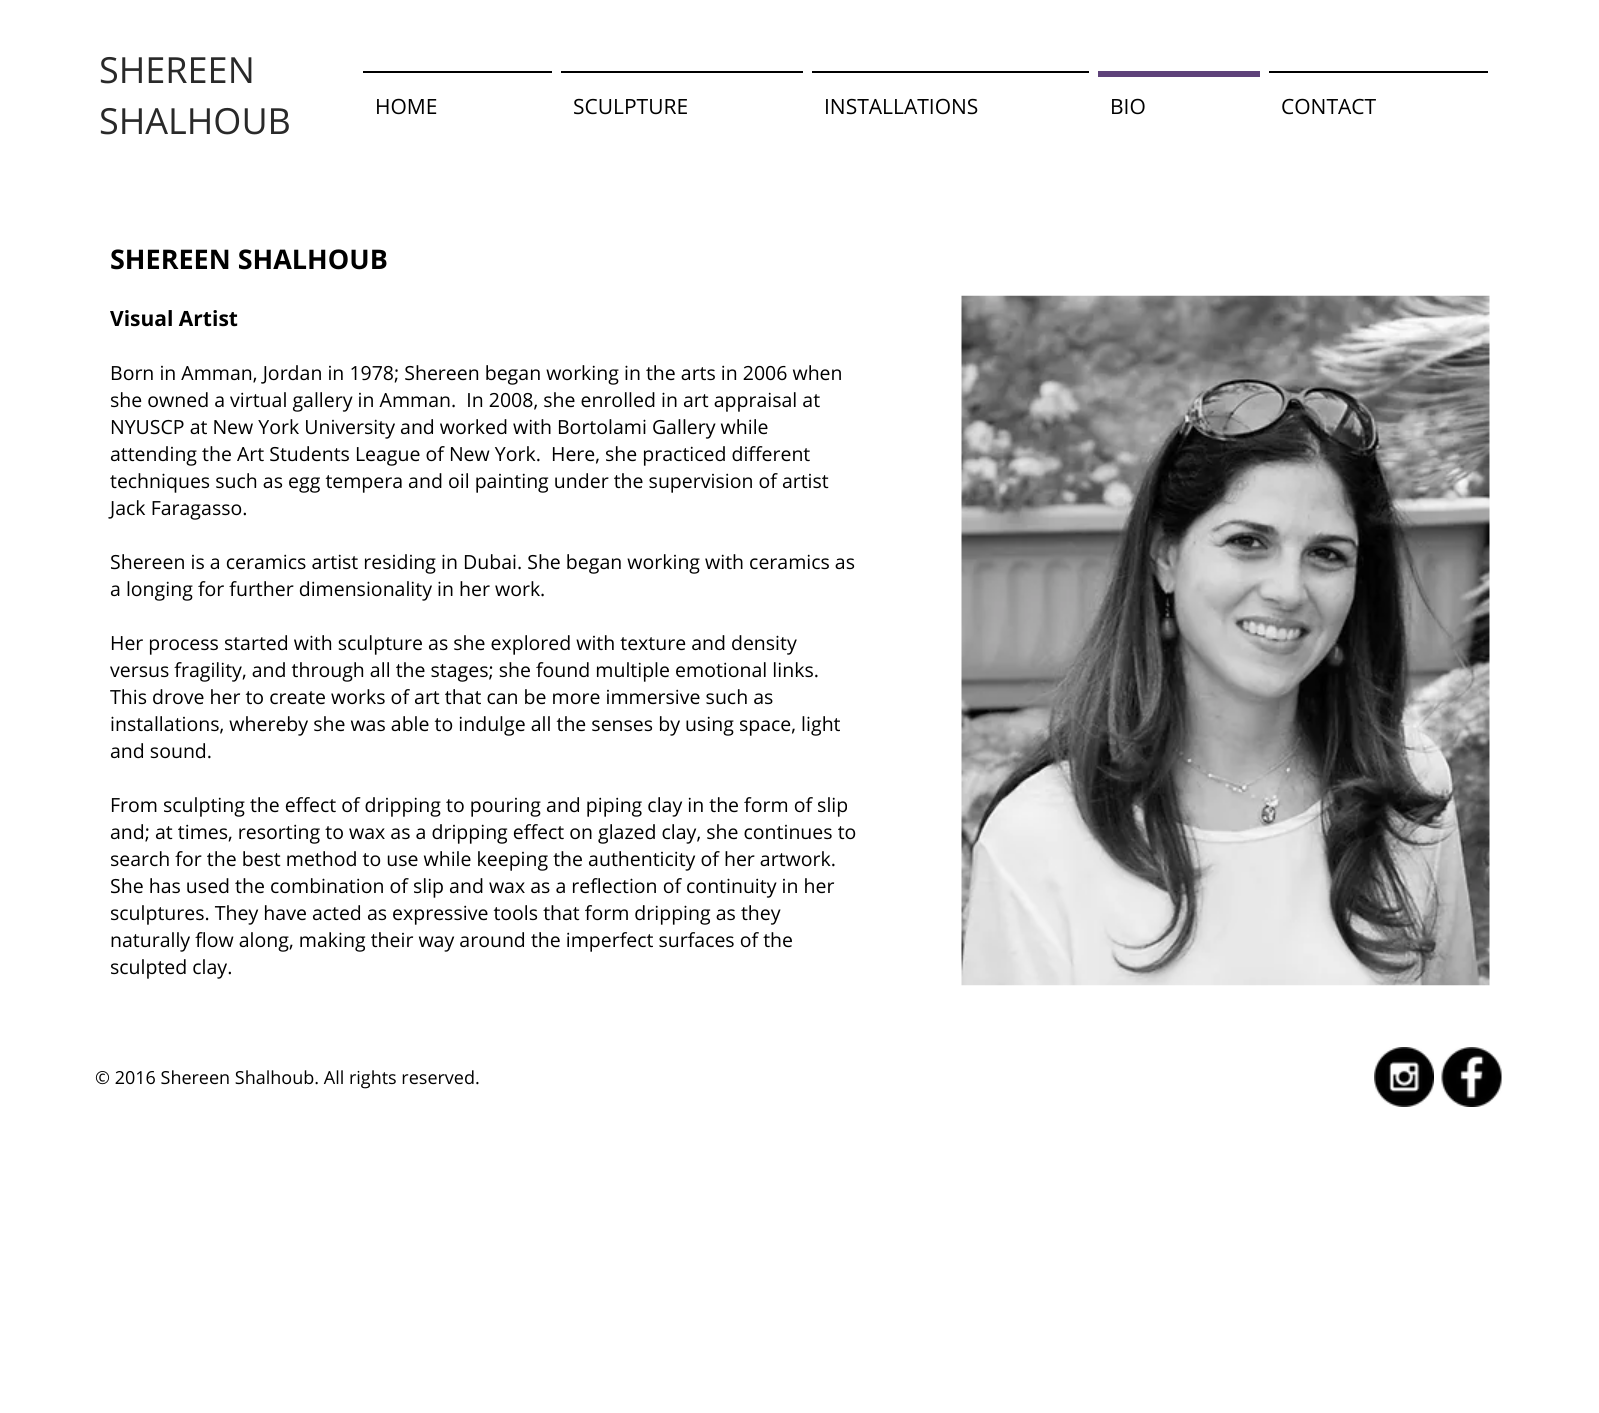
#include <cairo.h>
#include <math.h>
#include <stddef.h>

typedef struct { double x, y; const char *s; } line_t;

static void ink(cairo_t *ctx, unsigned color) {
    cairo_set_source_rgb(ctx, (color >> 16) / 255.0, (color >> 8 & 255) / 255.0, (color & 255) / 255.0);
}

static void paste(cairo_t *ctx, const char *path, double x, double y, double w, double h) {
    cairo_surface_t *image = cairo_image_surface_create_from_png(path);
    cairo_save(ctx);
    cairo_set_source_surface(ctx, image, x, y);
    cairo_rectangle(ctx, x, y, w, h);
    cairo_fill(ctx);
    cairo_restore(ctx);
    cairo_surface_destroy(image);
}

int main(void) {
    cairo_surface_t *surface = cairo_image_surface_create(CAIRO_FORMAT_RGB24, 1599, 1413);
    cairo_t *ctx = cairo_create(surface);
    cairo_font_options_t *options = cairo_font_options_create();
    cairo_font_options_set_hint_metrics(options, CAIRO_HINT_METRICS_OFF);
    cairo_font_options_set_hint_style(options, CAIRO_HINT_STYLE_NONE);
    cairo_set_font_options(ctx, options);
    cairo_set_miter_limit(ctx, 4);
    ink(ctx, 0xFFFFFF);
    cairo_paint(ctx);
    cairo_select_font_face(ctx, "Open Sans", CAIRO_FONT_SLANT_NORMAL, CAIRO_FONT_WEIGHT_NORMAL);
    cairo_set_font_size(ctx, 36);
    ink(ctx, 0x292929);
    cairo_move_to(ctx, 99, 83);
    cairo_show_text(ctx, "SHEREEN");
    cairo_move_to(ctx, 99, 134);
    cairo_show_text(ctx, "SHALHOUB");
    ink(ctx, 0x000000);
    cairo_rectangle(ctx, 363, 71, 189, 2);
    cairo_fill(ctx);
    cairo_set_font_size(ctx, 21);
    cairo_move_to(ctx, 375, 114);
    cairo_show_text(ctx, "HOME");
    cairo_rectangle(ctx, 561, 71, 242, 2);
    cairo_fill(ctx);
    cairo_move_to(ctx, 573, 114);
    cairo_show_text(ctx, "SCULPTURE");
    cairo_rectangle(ctx, 812, 71, 277, 2);
    cairo_fill(ctx);
    cairo_move_to(ctx, 824, 114);
    cairo_show_text(ctx, "INSTALLATIONS");
    ink(ctx, 0x5E427A);
    cairo_rectangle(ctx, 1098, 71, 162, 6);
    cairo_fill(ctx);
    ink(ctx, 0x000000);
    cairo_move_to(ctx, 1110, 114);
    cairo_show_text(ctx, "BIO");
    cairo_rectangle(ctx, 1269, 71, 219, 2);
    cairo_fill(ctx);
    cairo_move_to(ctx, 1281, 114);
    cairo_show_text(ctx, "CONTACT");
    cairo_select_font_face(ctx, "Open Sans", CAIRO_FONT_SLANT_NORMAL, CAIRO_FONT_WEIGHT_BOLD);
    cairo_set_font_size(ctx, 27);
    cairo_move_to(ctx, 110, 269);
    cairo_show_text(ctx, "SHEREEN SHALHOUB");
    cairo_set_font_size(ctx, 21);
    cairo_move_to(ctx, 110, 326);
    cairo_show_text(ctx, "Visual Artist");
    cairo_select_font_face(ctx, "Open Sans", CAIRO_FONT_SLANT_NORMAL, CAIRO_FONT_WEIGHT_NORMAL);
    cairo_set_font_size(ctx, 19.5);
    {
        static const line_t items[] = {
            {110, 380, "Born in Amman, Jordan in 1978; Shereen began working in the arts in 2006 when"},
            {110, 407, "she owned a virtual gallery in Amman.  In 2008, she enrolled in art appraisal at"},
            {110, 434, "NYUSCP at New York University and worked with Bortolami Gallery while"},
            {110, 461, "attending the Art Students League of New York.  Here, she practiced different"},
            {110, 488, "techniques such as egg tempera and oil painting under the supervision of artist"},
            {110, 515, "Jack Faragasso."},
            {110, 569, "Shereen is a ceramics artist residing in Dubai. She began working with ceramics as"},
            {110, 596, "a longing for further dimensionality in her work."},
            {110, 650, "Her process started with sculpture as she explored with texture and density"},
            {110, 677, "versus fragility, and through all the stages; she found multiple emotional links."},
            {110, 704, "This drove her to create works of art that can be more immersive such as"},
            {110, 731, "installations, whereby she was able to indulge all the senses by using space, light"},
            {110, 758, "and sound."},
            {110, 812, "From sculpting the effect of dripping to pouring and piping clay in the form of slip"},
            {110, 839, "and; at times, resorting to wax as a dripping effect on glazed clay, she continues to"},
            {110, 866, "search for the best method to use while keeping the authenticity of her artwork."},
            {110, 893, "She has used the combination of slip and wax as a reflection of continuity in her"},
            {110, 920, "sculptures. They have acted as expressive tools that form dripping as they"},
            {110, 947, "naturally flow along, making their way around the imperfect surfaces of the"},
            {110, 974, "sculpted clay."},
        };
        for (size_t i = 0; i < sizeof items / sizeof *items; i++) {
            cairo_move_to(ctx, items[i].x, items[i].y);
            cairo_show_text(ctx, items[i].s);
        }
    }
    paste(ctx, "media/1.png", 961, 295, 529, 691);
    cairo_set_font_size(ctx, 18);
    cairo_move_to(ctx, 95, 1084);
    cairo_show_text(ctx, "© 2016 Shereen Shalhoub. All rights reserved.");
    paste(ctx, "media/2.png", 1374, 1047, 60, 60);
    paste(ctx, "media/3.png", 1441, 1047, 61, 60);
    cairo_surface_write_to_png(surface, "image.png");
    cairo_font_options_destroy(options);
    cairo_destroy(ctx);
    cairo_surface_destroy(surface);
    return 0;
}
